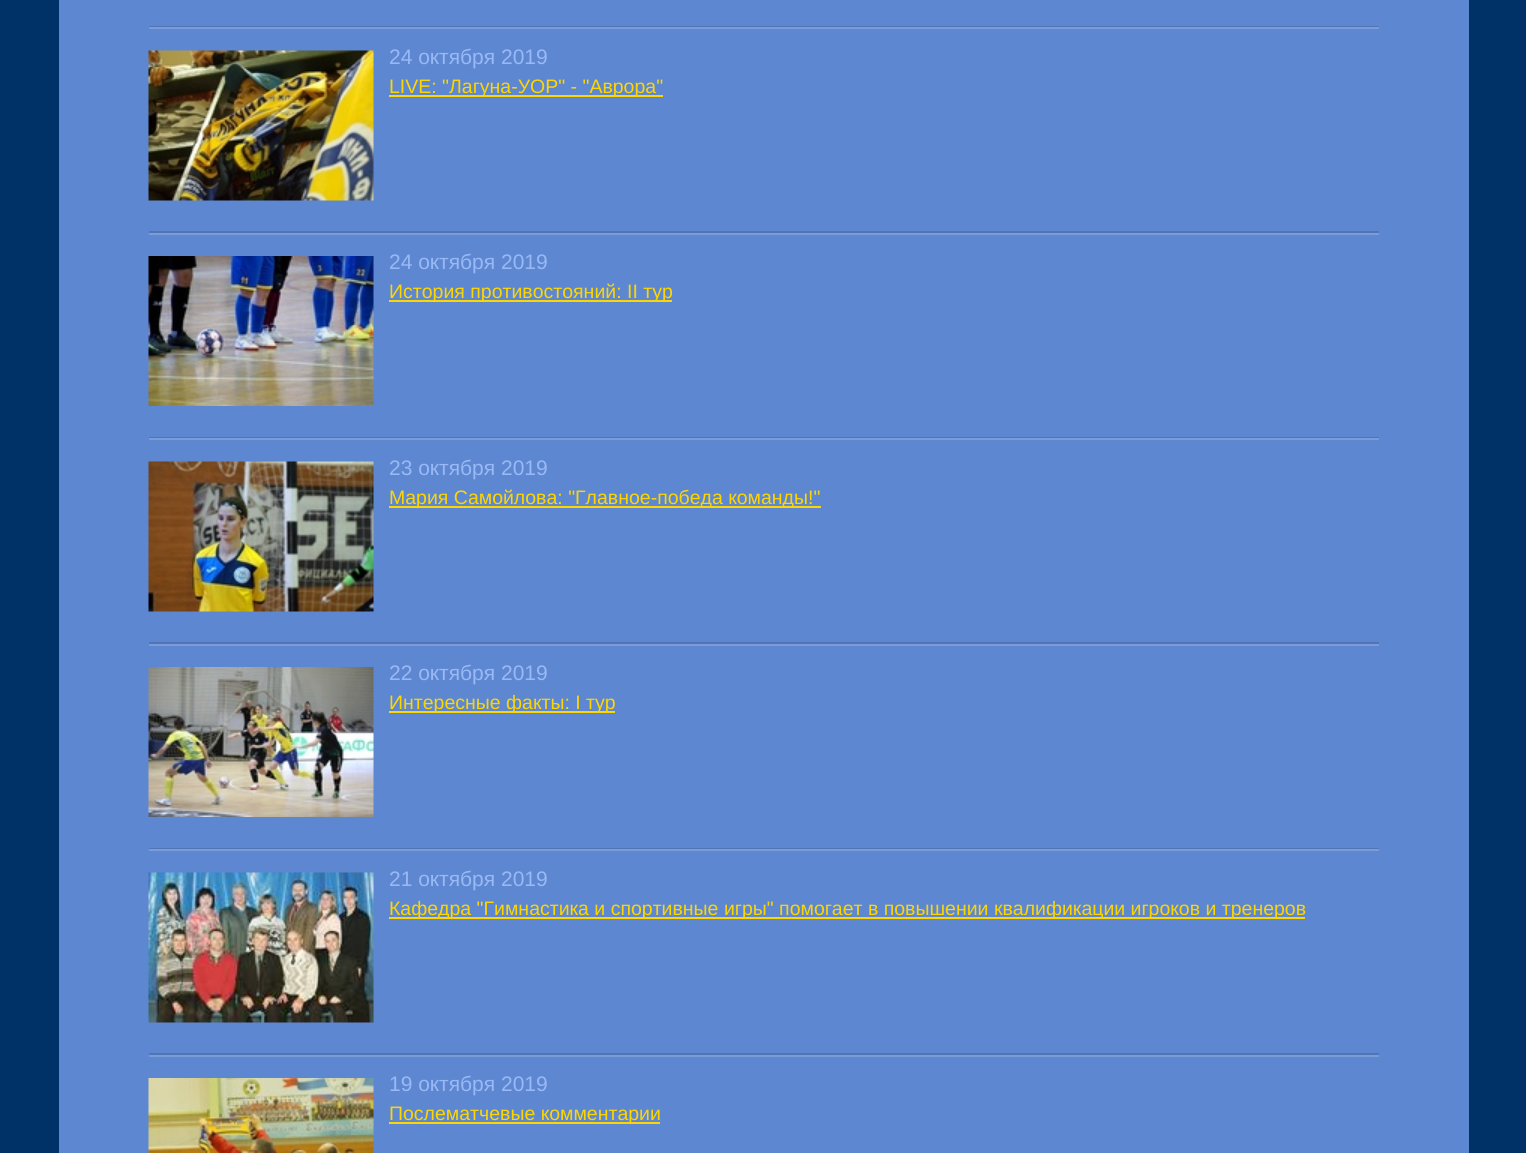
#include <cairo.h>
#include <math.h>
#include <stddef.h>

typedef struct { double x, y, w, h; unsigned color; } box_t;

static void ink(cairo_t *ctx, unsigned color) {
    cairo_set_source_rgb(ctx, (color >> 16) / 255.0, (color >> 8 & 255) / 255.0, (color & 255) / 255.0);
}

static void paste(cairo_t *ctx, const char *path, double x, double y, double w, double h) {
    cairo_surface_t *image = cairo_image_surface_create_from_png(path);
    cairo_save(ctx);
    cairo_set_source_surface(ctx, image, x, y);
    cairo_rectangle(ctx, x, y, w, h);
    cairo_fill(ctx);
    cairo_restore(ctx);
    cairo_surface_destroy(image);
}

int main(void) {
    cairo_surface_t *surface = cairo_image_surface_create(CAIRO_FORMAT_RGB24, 1526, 1153);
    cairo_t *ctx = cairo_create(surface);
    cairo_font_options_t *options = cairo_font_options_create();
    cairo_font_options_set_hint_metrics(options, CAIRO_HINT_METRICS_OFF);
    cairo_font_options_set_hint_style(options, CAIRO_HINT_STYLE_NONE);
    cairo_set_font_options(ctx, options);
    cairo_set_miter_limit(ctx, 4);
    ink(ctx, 0x003267);
    cairo_paint(ctx);
    {
        static const box_t items[] = {
            {59, 0, 1410, 1153, 0x5E87D1},
            {149, 26, 1230, 1, 0x5174B4},
            {149, 27, 1230, 2, 0x7A9CD9},
        };
        for (size_t i = 0; i < sizeof items / sizeof *items; i++) {
            ink(ctx, items[i].color);
            cairo_rectangle(ctx, items[i].x, items[i].y, items[i].w, items[i].h);
            cairo_fill(ctx);
        }
    }
    paste(ctx, "media/1.png", 148, 50, 226, 151);
    cairo_select_font_face(ctx, "Liberation Sans", CAIRO_FONT_SLANT_NORMAL, CAIRO_FONT_WEIGHT_NORMAL);
    cairo_set_font_size(ctx, 21);
    ink(ctx, 0x98B9F5);
    cairo_move_to(ctx, 389, 64);
    cairo_show_text(ctx, "24 октября 2019");
    ink(ctx, 0xFDD600);
    cairo_rectangle(ctx, 389, 95, 274, 2);
    cairo_fill(ctx);
    cairo_set_font_size(ctx, 19.5);
    cairo_move_to(ctx, 389, 93);
    cairo_show_text(ctx, "LIVE: \"Лагуна-УОР\" - \"Аврора\"");
    ink(ctx, 0x5174B4);
    cairo_rectangle(ctx, 149, 231, 1230, 2);
    cairo_fill(ctx);
    ink(ctx, 0x7A9CD9);
    cairo_rectangle(ctx, 149, 233, 1230, 2);
    cairo_fill(ctx);
    paste(ctx, "media/2.png", 148, 256, 226, 150);
    cairo_set_font_size(ctx, 21);
    ink(ctx, 0x98B9F5);
    cairo_move_to(ctx, 389, 269);
    cairo_show_text(ctx, "24 октября 2019");
    ink(ctx, 0xFDD600);
    cairo_rectangle(ctx, 389, 300, 283, 2);
    cairo_fill(ctx);
    cairo_set_font_size(ctx, 19.5);
    cairo_move_to(ctx, 389, 298);
    cairo_show_text(ctx, "История противостояний: II тур");
    ink(ctx, 0x5174B4);
    cairo_rectangle(ctx, 149, 437, 1230, 1);
    cairo_fill(ctx);
    ink(ctx, 0x7A9CD9);
    cairo_rectangle(ctx, 149, 438, 1230, 2);
    cairo_fill(ctx);
    paste(ctx, "media/3.png", 148, 461, 226, 151);
    cairo_set_font_size(ctx, 21);
    ink(ctx, 0x98B9F5);
    cairo_move_to(ctx, 389, 475);
    cairo_show_text(ctx, "23 октября 2019");
    ink(ctx, 0xFDD600);
    cairo_rectangle(ctx, 389, 506, 432, 2);
    cairo_fill(ctx);
    cairo_set_font_size(ctx, 19.5);
    cairo_move_to(ctx, 389, 504);
    cairo_show_text(ctx, "Мария Самойлова: \"Главное-победа команды!\"");
    ink(ctx, 0x5174B4);
    cairo_rectangle(ctx, 149, 642, 1230, 2);
    cairo_fill(ctx);
    ink(ctx, 0x7A9CD9);
    cairo_rectangle(ctx, 149, 644, 1230, 2);
    cairo_fill(ctx);
    paste(ctx, "media/4.png", 148, 667, 226, 150);
    cairo_set_font_size(ctx, 21);
    ink(ctx, 0x98B9F5);
    cairo_move_to(ctx, 389, 680);
    cairo_show_text(ctx, "22 октября 2019");
    ink(ctx, 0xFDD600);
    cairo_rectangle(ctx, 389, 711, 226, 2);
    cairo_fill(ctx);
    cairo_set_font_size(ctx, 19.5);
    cairo_move_to(ctx, 389, 709);
    cairo_show_text(ctx, "Интересные факты: I тур");
    ink(ctx, 0x5174B4);
    cairo_rectangle(ctx, 149, 848, 1230, 1);
    cairo_fill(ctx);
    ink(ctx, 0x7A9CD9);
    cairo_rectangle(ctx, 149, 849, 1230, 2);
    cairo_fill(ctx);
    paste(ctx, "media/5.png", 148, 872, 226, 151);
    cairo_set_font_size(ctx, 21);
    ink(ctx, 0x98B9F5);
    cairo_move_to(ctx, 389, 886);
    cairo_show_text(ctx, "21 октября 2019");
    ink(ctx, 0xFDD600);
    cairo_rectangle(ctx, 389, 917, 916, 2);
    cairo_fill(ctx);
    cairo_set_font_size(ctx, 19.5);
    cairo_move_to(ctx, 389, 915);
    cairo_show_text(ctx, "Кафедра \"Гимнастика и спортивные игры\" помогает в повышении квалификации игроков и тренеров");
    ink(ctx, 0x5174B4);
    cairo_rectangle(ctx, 149, 1053, 1230, 2);
    cairo_fill(ctx);
    ink(ctx, 0x7A9CD9);
    cairo_rectangle(ctx, 149, 1055, 1230, 2);
    cairo_fill(ctx);
    paste(ctx, "media/6.png", 148, 1078, 226, 75);
    cairo_set_font_size(ctx, 21);
    ink(ctx, 0x98B9F5);
    cairo_move_to(ctx, 389, 1091);
    cairo_show_text(ctx, "19 октября 2019");
    ink(ctx, 0xFDD600);
    cairo_rectangle(ctx, 389, 1122, 271, 2);
    cairo_fill(ctx);
    cairo_set_font_size(ctx, 19.5);
    cairo_move_to(ctx, 389, 1120);
    cairo_show_text(ctx, "Послематчевые комментарии");
    cairo_surface_write_to_png(surface, "image.png");
    cairo_font_options_destroy(options);
    cairo_destroy(ctx);
    cairo_surface_destroy(surface);
    return 0;
}
